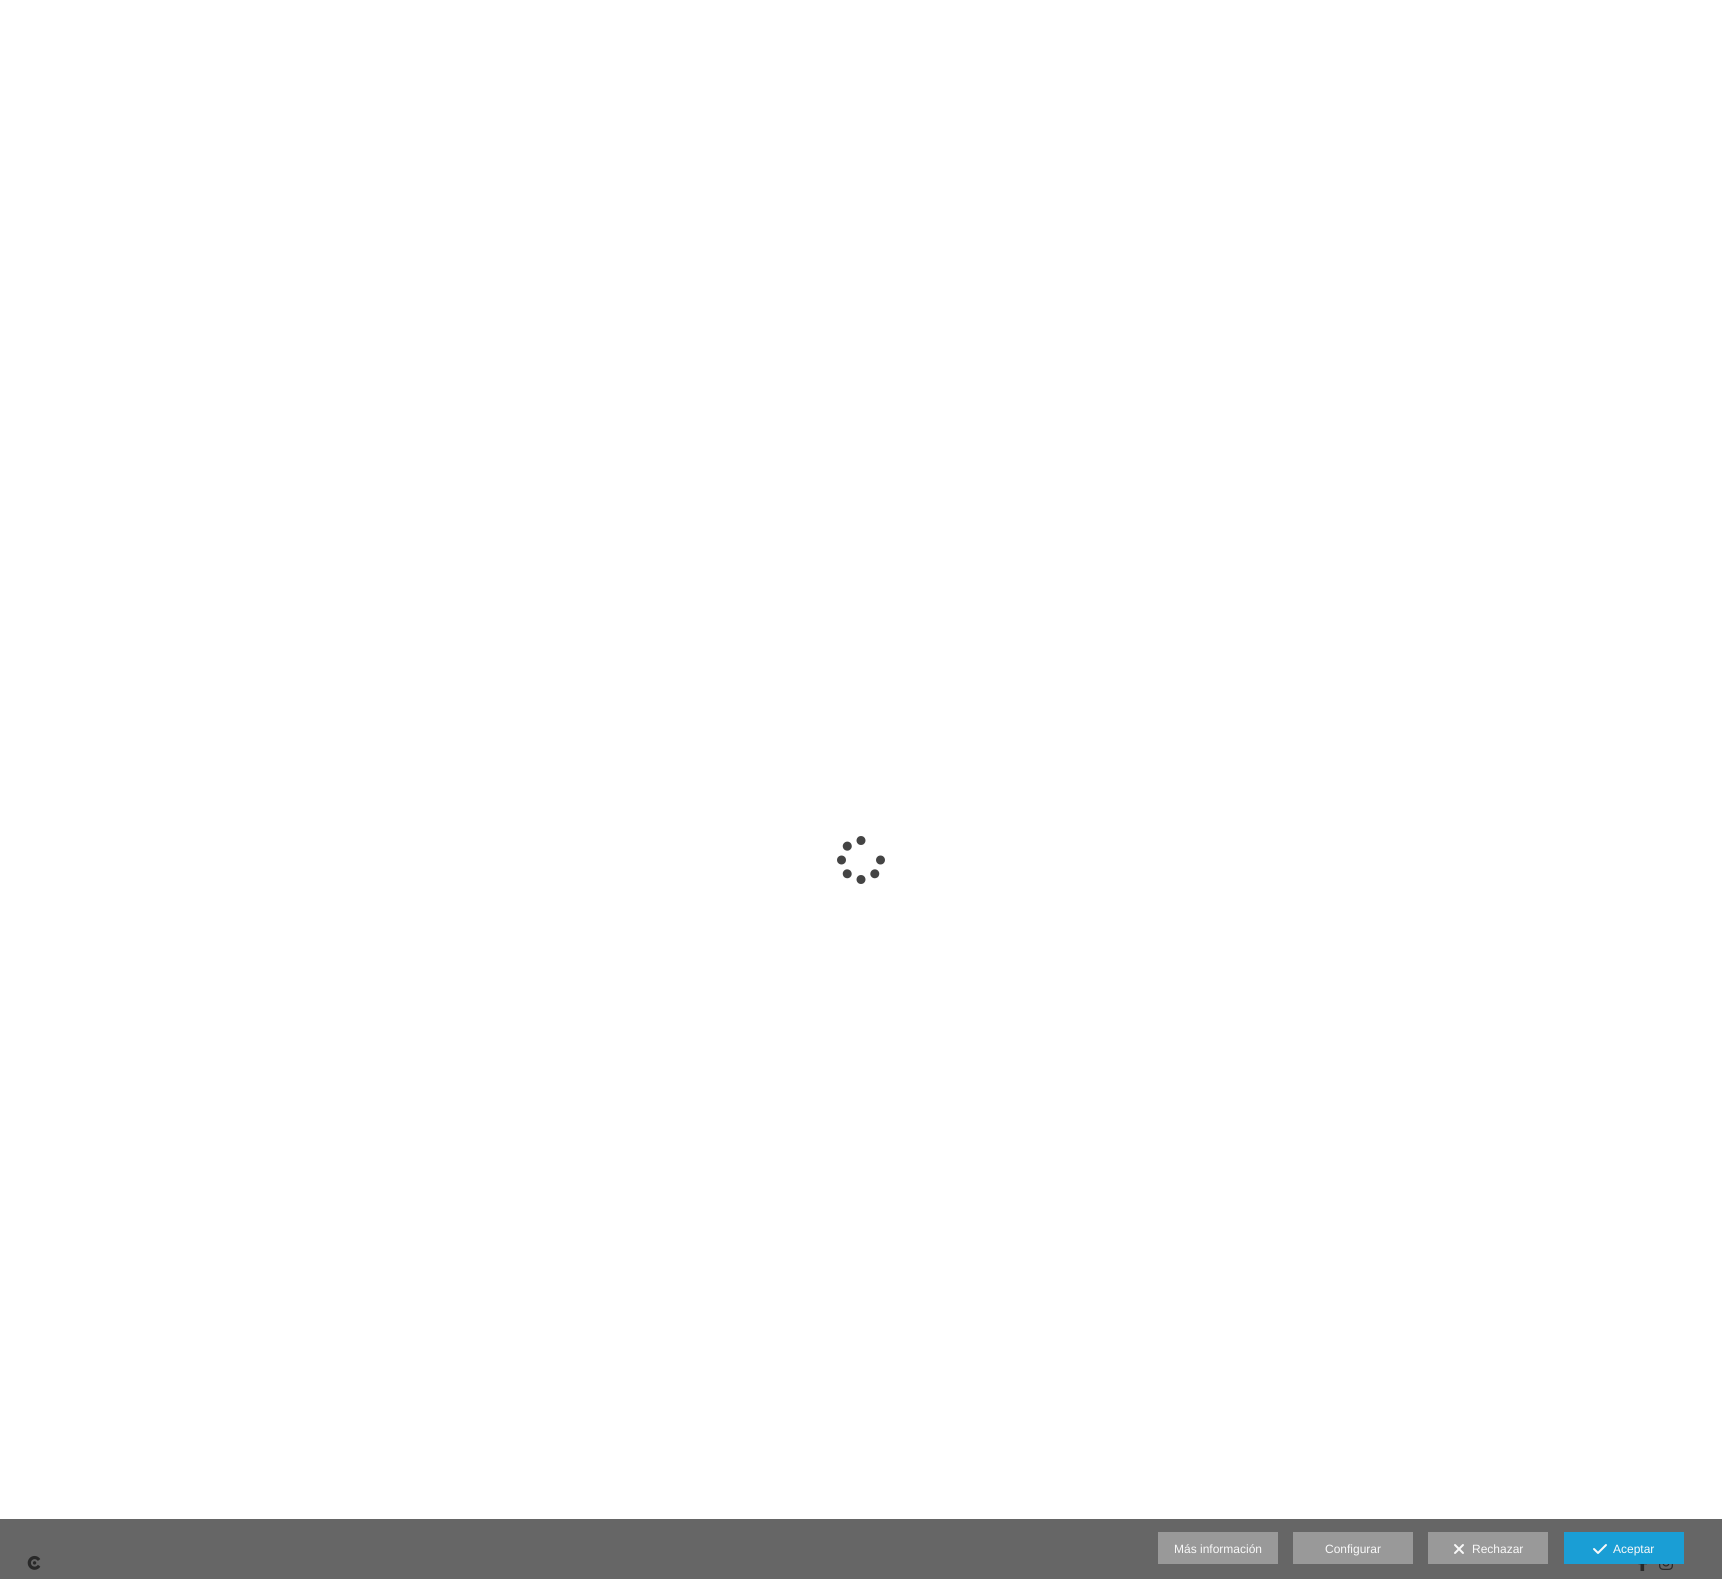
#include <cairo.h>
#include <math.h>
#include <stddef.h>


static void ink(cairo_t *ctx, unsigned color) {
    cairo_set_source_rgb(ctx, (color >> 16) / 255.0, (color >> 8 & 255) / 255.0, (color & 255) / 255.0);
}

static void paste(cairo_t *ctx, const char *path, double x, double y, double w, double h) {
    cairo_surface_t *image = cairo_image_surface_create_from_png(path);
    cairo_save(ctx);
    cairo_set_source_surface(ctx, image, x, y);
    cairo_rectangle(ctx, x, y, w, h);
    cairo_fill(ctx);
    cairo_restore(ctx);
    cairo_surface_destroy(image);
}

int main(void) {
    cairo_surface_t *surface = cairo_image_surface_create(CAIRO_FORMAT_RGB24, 1722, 1579);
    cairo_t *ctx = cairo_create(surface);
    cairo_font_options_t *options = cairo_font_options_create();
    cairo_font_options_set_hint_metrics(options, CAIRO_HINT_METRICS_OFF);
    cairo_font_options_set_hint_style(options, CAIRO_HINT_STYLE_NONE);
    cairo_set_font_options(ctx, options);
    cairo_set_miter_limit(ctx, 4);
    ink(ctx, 0xFFFFFF);
    cairo_paint(ctx);
    ink(ctx, 0x666666);
    cairo_rectangle(ctx, 0, 1519, 1722, 60);
    cairo_fill(ctx);
    paste(ctx, "media/1.png", 837, 836, 48, 48);
    paste(ctx, "media/2.png", 27, 1555, 14, 15);
    paste(ctx, "media/3.png", 1638, 1564, 9, 7);
    paste(ctx, "media/4.png", 1659, 1564, 14, 6);
    ink(ctx, 0x999999);
    cairo_rectangle(ctx, 1158, 1532, 120, 32);
    cairo_fill(ctx);
    cairo_select_font_face(ctx, "Liberation Sans", CAIRO_FONT_SLANT_NORMAL, CAIRO_FONT_WEIGHT_NORMAL);
    cairo_set_font_size(ctx, 12);
    ink(ctx, 0xF9F9F9);
    cairo_move_to(ctx, 1174, 1553);
    cairo_show_text(ctx, "Más información");
    ink(ctx, 0x999999);
    cairo_rectangle(ctx, 1293, 1532, 120, 32);
    cairo_fill(ctx);
    ink(ctx, 0xF9F9F9);
    cairo_move_to(ctx, 1325, 1553);
    cairo_show_text(ctx, "Configurar");
    ink(ctx, 0x999999);
    cairo_rectangle(ctx, 1428, 1532, 120, 32);
    cairo_fill(ctx);
    paste(ctx, "media/5.png", 1454, 1544, 10, 10);
    ink(ctx, 0xF9F9F9);
    cairo_move_to(ctx, 1472, 1553);
    cairo_show_text(ctx, "Rechazar");
    ink(ctx, 0x1A9ED5);
    cairo_rectangle(ctx, 1564, 1532, 120, 32);
    cairo_fill(ctx);
    paste(ctx, "media/6.png", 1593, 1544, 14, 10);
    ink(ctx, 0xF9F9F9);
    cairo_move_to(ctx, 1613, 1553);
    cairo_show_text(ctx, "Aceptar");
    cairo_surface_write_to_png(surface, "image.png");
    cairo_font_options_destroy(options);
    cairo_destroy(ctx);
    cairo_surface_destroy(surface);
    return 0;
}
